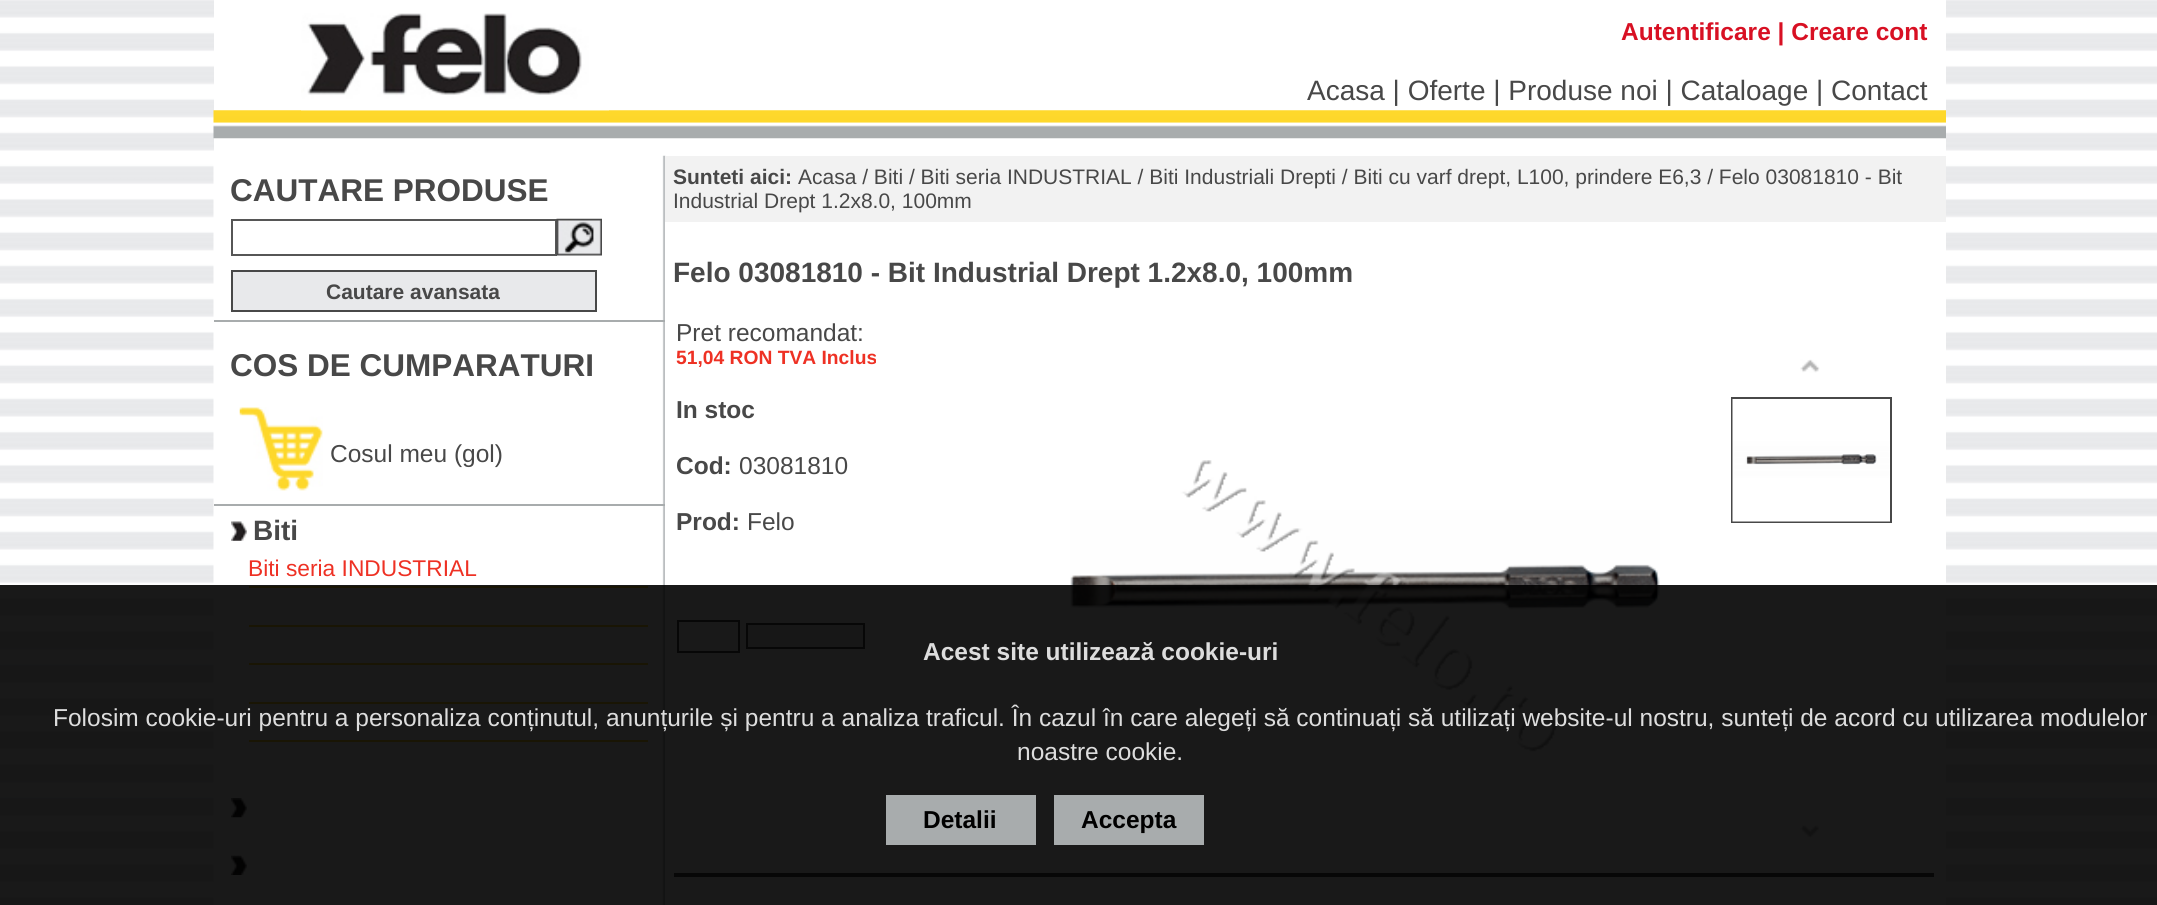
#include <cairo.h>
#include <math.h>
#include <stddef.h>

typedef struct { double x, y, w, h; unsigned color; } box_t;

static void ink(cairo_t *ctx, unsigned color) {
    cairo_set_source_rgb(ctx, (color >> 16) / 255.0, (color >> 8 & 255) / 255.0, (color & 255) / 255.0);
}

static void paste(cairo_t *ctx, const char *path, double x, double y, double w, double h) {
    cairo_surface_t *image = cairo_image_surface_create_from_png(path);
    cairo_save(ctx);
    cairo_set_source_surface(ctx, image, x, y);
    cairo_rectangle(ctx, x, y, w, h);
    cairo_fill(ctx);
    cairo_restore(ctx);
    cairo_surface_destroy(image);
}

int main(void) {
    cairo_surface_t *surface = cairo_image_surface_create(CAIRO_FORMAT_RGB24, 2157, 905);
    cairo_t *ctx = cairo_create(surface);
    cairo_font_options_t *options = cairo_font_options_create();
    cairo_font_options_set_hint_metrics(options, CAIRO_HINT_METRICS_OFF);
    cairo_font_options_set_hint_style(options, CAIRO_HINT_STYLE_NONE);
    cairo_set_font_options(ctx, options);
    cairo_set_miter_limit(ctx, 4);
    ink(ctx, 0xFFFFFF);
    cairo_paint(ctx);
    paste(ctx, "media/1.png", 0, 0, 2157, 905);
    ink(ctx, 0xFFFFFF);
    cairo_rectangle(ctx, 214, 0, 1732, 151);
    cairo_fill(ctx);
    paste(ctx, "media/3.png", 213, 110, 1733, 29);
    paste(ctx, "media/2.png", 301, 13, 308, 98);
    cairo_select_font_face(ctx, "Liberation Sans", CAIRO_FONT_SLANT_NORMAL, CAIRO_FONT_WEIGHT_BOLD);
    cairo_set_font_size(ctx, 24.5);
    ink(ctx, 0xD81023);
    cairo_move_to(ctx, 1621, 40);
    cairo_show_text(ctx, "Autentificare | Creare cont");
    cairo_select_font_face(ctx, "Liberation Sans", CAIRO_FONT_SLANT_NORMAL, CAIRO_FONT_WEIGHT_NORMAL);
    cairo_set_font_size(ctx, 28);
    ink(ctx, 0x484848);
    cairo_move_to(ctx, 1307, 100);
    cairo_show_text(ctx, "Acasa | Oferte | Produse noi | Cataloage | Contact");
    paste(ctx, "media/4.png", 213, 155, 453, 750);
    cairo_select_font_face(ctx, "Liberation Sans", CAIRO_FONT_SLANT_NORMAL, CAIRO_FONT_WEIGHT_BOLD);
    cairo_set_font_size(ctx, 31.5);
    cairo_move_to(ctx, 230, 201);
    cairo_show_text(ctx, "CAUTARE PRODUSE");
    cairo_rectangle(ctx, 232, 220, 324, 35);
    ink(ctx, 0x565656);
    cairo_stroke(ctx);
    paste(ctx, "media/5.png", 556, 218, 46, 38);
    ink(ctx, 0xE8E9EB);
    cairo_rectangle(ctx, 232, 271, 364, 40);
    cairo_fill_preserve(ctx);
    ink(ctx, 0x484848);
    cairo_stroke(ctx);
    cairo_set_font_size(ctx, 21);
    cairo_move_to(ctx, 326, 299);
    cairo_show_text(ctx, "Cautare avansata");
    ink(ctx, 0xA8ACAD);
    cairo_rectangle(ctx, 214, 320, 451, 2);
    cairo_fill(ctx);
    cairo_set_font_size(ctx, 31.5);
    ink(ctx, 0x484848);
    cairo_move_to(ctx, 230, 376);
    cairo_show_text(ctx, "COS DE CUMPARATURI");
    paste(ctx, "media/6.png", 239, 407, 84, 84);
    cairo_select_font_face(ctx, "Liberation Sans", CAIRO_FONT_SLANT_NORMAL, CAIRO_FONT_WEIGHT_NORMAL);
    cairo_set_font_size(ctx, 24.5);
    cairo_move_to(ctx, 330, 462);
    cairo_show_text(ctx, "Cosul meu (gol)");
    ink(ctx, 0xA8ACAD);
    cairo_rectangle(ctx, 214, 504, 451, 2);
    cairo_fill(ctx);
    paste(ctx, "media/7.png", 231, 521, 16, 20);
    cairo_select_font_face(ctx, "Liberation Sans", CAIRO_FONT_SLANT_NORMAL, CAIRO_FONT_WEIGHT_BOLD);
    cairo_set_font_size(ctx, 28);
    ink(ctx, 0x484848);
    cairo_move_to(ctx, 253, 540);
    cairo_show_text(ctx, "Biti");
    cairo_select_font_face(ctx, "Liberation Sans", CAIRO_FONT_SLANT_NORMAL, CAIRO_FONT_WEIGHT_NORMAL);
    cairo_set_font_size(ctx, 22.75);
    ink(ctx, 0xEE3124);
    cairo_move_to(ctx, 248, 576);
    cairo_show_text(ctx, "Biti seria INDUSTRIAL");
    {
        static const box_t items[] = {
            {249, 586, 399, 2, 0xFED82B},
            {249, 625, 399, 2, 0xFED82B},
            {249, 663, 399, 2, 0xFED82B},
            {249, 702, 399, 2, 0xFED82B},
            {249, 740, 399, 2, 0xFED82B},
        };
        for (size_t i = 0; i < sizeof items / sizeof *items; i++) {
            ink(ctx, items[i].color);
            cairo_rectangle(ctx, items[i].x, items[i].y, items[i].w, items[i].h);
            cairo_fill(ctx);
        }
    }
    paste(ctx, "media/8.png", 231, 798, 16, 20);
    paste(ctx, "media/9.png", 231, 855, 16, 20);
    ink(ctx, 0xFFFFFF);
    cairo_rectangle(ctx, 665, 222, 1281, 683);
    cairo_fill(ctx);
    ink(ctx, 0xF2F2F2);
    cairo_rectangle(ctx, 665, 156, 1281, 66);
    cairo_fill(ctx);
    cairo_select_font_face(ctx, "Liberation Sans", CAIRO_FONT_SLANT_NORMAL, CAIRO_FONT_WEIGHT_BOLD);
    cairo_set_font_size(ctx, 21);
    ink(ctx, 0x484848);
    cairo_move_to(ctx, 673, 184);
    cairo_show_text(ctx, "Sunteti aici:");
    cairo_select_font_face(ctx, "Liberation Sans", CAIRO_FONT_SLANT_NORMAL, CAIRO_FONT_WEIGHT_NORMAL);
    cairo_move_to(ctx, 798, 184);
    cairo_show_text(ctx, "Acasa / Biti / Biti seria INDUSTRIAL / Biti Industriali Drepti / Biti cu varf drept, L100, prindere E6,3 / Felo 03081810 - Bit");
    cairo_move_to(ctx, 673, 208);
    cairo_show_text(ctx, "Industrial Drept 1.2x8.0, 100mm");
    cairo_select_font_face(ctx, "Liberation Sans", CAIRO_FONT_SLANT_NORMAL, CAIRO_FONT_WEIGHT_BOLD);
    cairo_set_font_size(ctx, 28);
    cairo_move_to(ctx, 673, 282);
    cairo_show_text(ctx, "Felo 03081810 - Bit Industrial Drept 1.2x8.0, 100mm");
    cairo_select_font_face(ctx, "Liberation Sans", CAIRO_FONT_SLANT_NORMAL, CAIRO_FONT_WEIGHT_NORMAL);
    cairo_set_font_size(ctx, 24.5);
    cairo_move_to(ctx, 676, 341);
    cairo_show_text(ctx, "Pret recomandat:");
    cairo_select_font_face(ctx, "Liberation Sans", CAIRO_FONT_SLANT_NORMAL, CAIRO_FONT_WEIGHT_BOLD);
    cairo_set_font_size(ctx, 19.25);
    ink(ctx, 0xEE3124);
    cairo_move_to(ctx, 676, 364);
    cairo_show_text(ctx, "51,04 RON TVA Inclus");
    cairo_set_font_size(ctx, 24.5);
    ink(ctx, 0x484848);
    cairo_move_to(ctx, 676, 418);
    cairo_show_text(ctx, "In stoc");
    cairo_move_to(ctx, 676, 474);
    cairo_show_text(ctx, "Cod:");
    cairo_select_font_face(ctx, "Liberation Sans", CAIRO_FONT_SLANT_NORMAL, CAIRO_FONT_WEIGHT_NORMAL);
    cairo_move_to(ctx, 739, 474);
    cairo_show_text(ctx, "03081810");
    cairo_select_font_face(ctx, "Liberation Sans", CAIRO_FONT_SLANT_NORMAL, CAIRO_FONT_WEIGHT_BOLD);
    cairo_move_to(ctx, 676, 530);
    cairo_show_text(ctx, "Prod:");
    cairo_select_font_face(ctx, "Liberation Sans", CAIRO_FONT_SLANT_NORMAL, CAIRO_FONT_WEIGHT_NORMAL);
    cairo_move_to(ctx, 747, 530);
    cairo_show_text(ctx, "Felo");
    cairo_rectangle(ctx, 678, 621, 61, 31);
    cairo_stroke(ctx);
    ink(ctx, 0xE8E9EB);
    cairo_rectangle(ctx, 747, 624, 117, 24);
    cairo_fill_preserve(ctx);
    ink(ctx, 0x484848);
    cairo_stroke(ctx);
    paste(ctx, "media/10.png", 1070, 460, 590, 292);
    paste(ctx, "media/11.png", 1800, 359, 20, 14);
    cairo_rectangle(ctx, 1732, 398, 159, 124);
    cairo_stroke(ctx);
    paste(ctx, "media/12.png", 1732, 399, 158, 123);
    paste(ctx, "media/13.png", 1800, 825, 19, 13);
    cairo_rectangle(ctx, 674, 873, 1260, 4);
    cairo_fill(ctx);
    cairo_set_source_rgba(ctx, 0, 0, 0, 0.9);
    cairo_rectangle(ctx, 0, 585, 2157, 320);
    cairo_fill(ctx);
    cairo_select_font_face(ctx, "Liberation Sans", CAIRO_FONT_SLANT_NORMAL, CAIRO_FONT_WEIGHT_BOLD);
    ink(ctx, 0xDDDDDD);
    cairo_move_to(ctx, 923, 660);
    cairo_show_text(ctx, "Acest site utilizează cookie-uri");
    cairo_select_font_face(ctx, "Liberation Sans", CAIRO_FONT_SLANT_NORMAL, CAIRO_FONT_WEIGHT_NORMAL);
    cairo_move_to(ctx, 53, 726);
    cairo_show_text(ctx, "Folosim cookie-uri pentru a personaliza conținutul, anunțurile și pentru a analiza traficul. În cazul în care alegeți să continuați să utilizați website-ul nostru, sunteți de acord cu utilizarea modulelor");
    cairo_move_to(ctx, 1017, 760);
    cairo_show_text(ctx, "noastre cookie.");
    ink(ctx, 0xA8ACAD);
    cairo_rectangle(ctx, 886, 795, 150, 50);
    cairo_fill(ctx);
    cairo_select_font_face(ctx, "Liberation Sans", CAIRO_FONT_SLANT_NORMAL, CAIRO_FONT_WEIGHT_BOLD);
    ink(ctx, 0x000000);
    cairo_move_to(ctx, 923, 828);
    cairo_show_text(ctx, "Detalii");
    ink(ctx, 0xA8ACAD);
    cairo_rectangle(ctx, 1054, 795, 150, 50);
    cairo_fill(ctx);
    ink(ctx, 0x000000);
    cairo_move_to(ctx, 1081, 828);
    cairo_show_text(ctx, "Accepta");
    cairo_surface_write_to_png(surface, "image.png");
    cairo_font_options_destroy(options);
    cairo_destroy(ctx);
    cairo_surface_destroy(surface);
    return 0;
}
